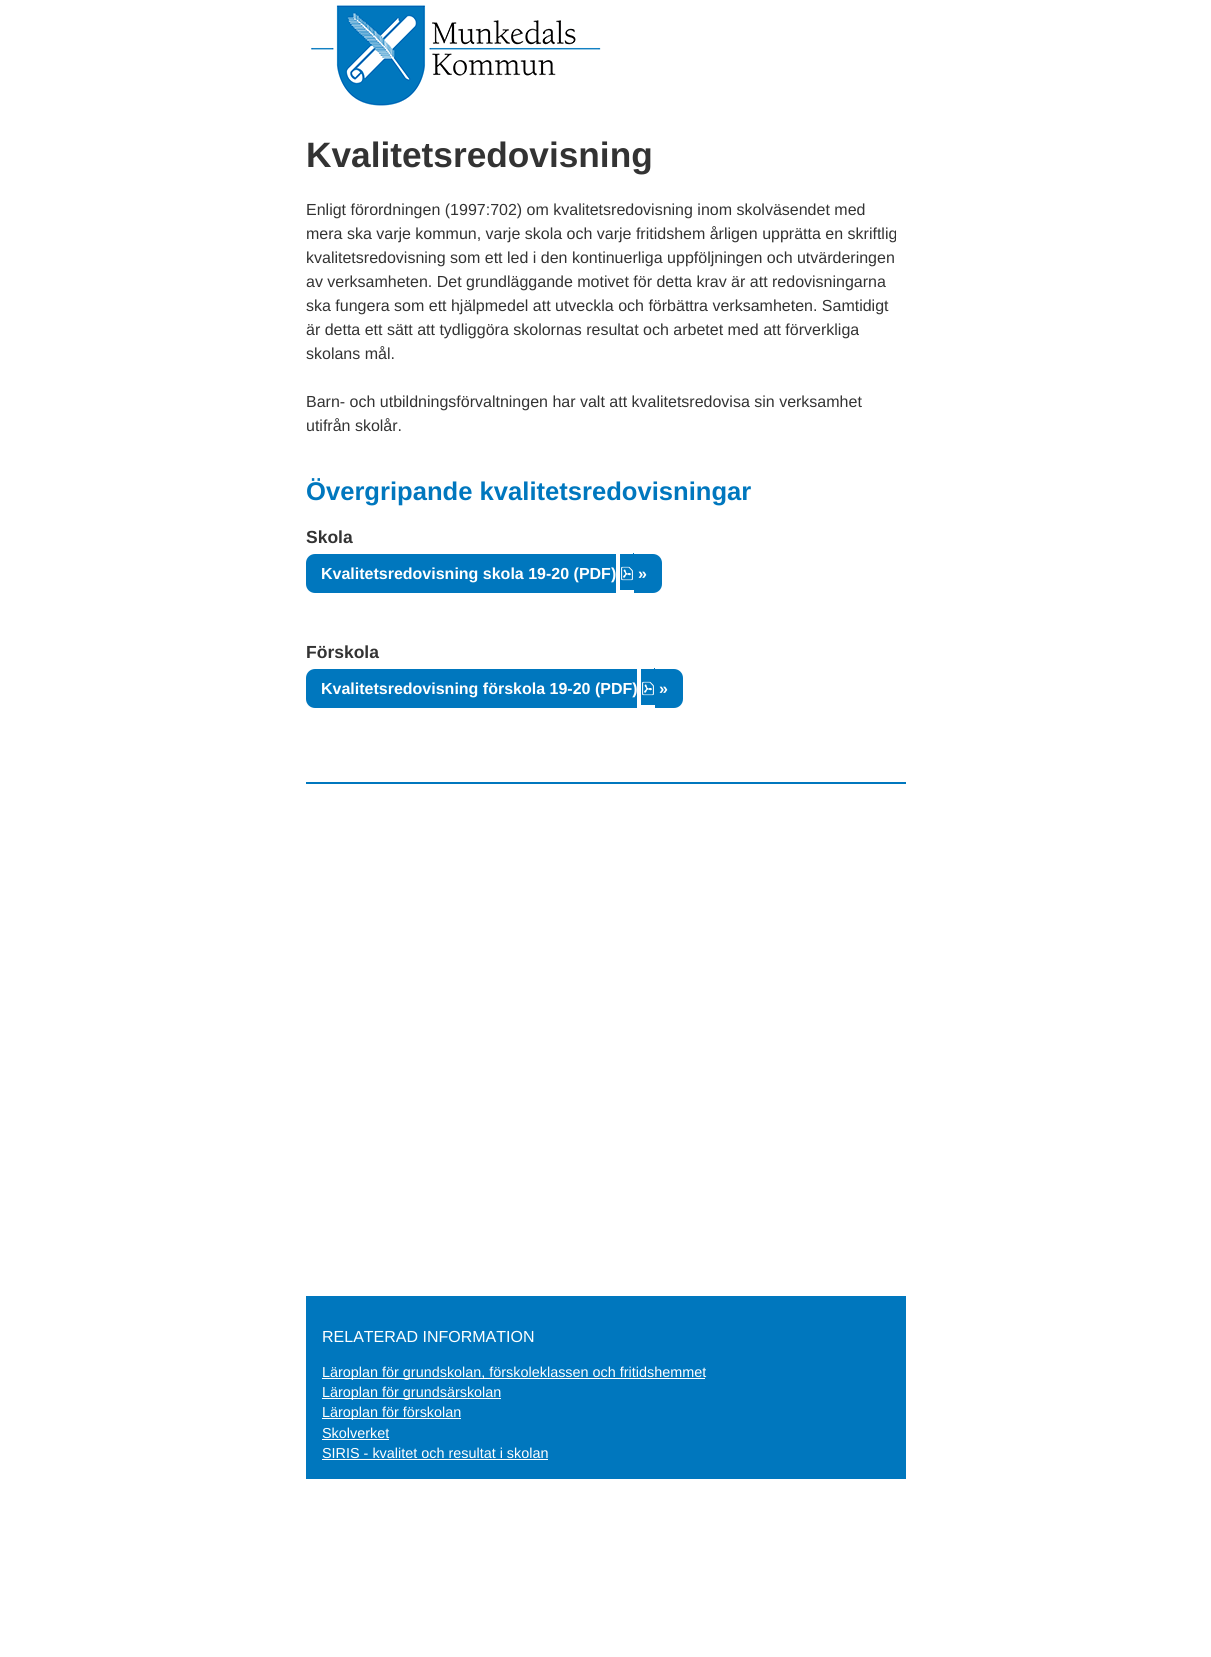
#include <cairo.h>
#include <math.h>
#include <stddef.h>

typedef struct { double x, y; const char *s; } line_t;

static void ink(cairo_t *ctx, unsigned color) {
    cairo_set_source_rgb(ctx, (color >> 16) / 255.0, (color >> 8 & 255) / 255.0, (color & 255) / 255.0);
}

static void paste(cairo_t *ctx, const char *path, double x, double y, double w, double h) {
    cairo_surface_t *image = cairo_image_surface_create_from_png(path);
    cairo_save(ctx);
    cairo_set_source_surface(ctx, image, x, y);
    cairo_rectangle(ctx, x, y, w, h);
    cairo_fill(ctx);
    cairo_restore(ctx);
    cairo_surface_destroy(image);
}

int main(void) {
    cairo_surface_t *surface = cairo_image_surface_create(CAIRO_FORMAT_RGB24, 1211, 1657);
    cairo_t *ctx = cairo_create(surface);
    cairo_font_options_t *options = cairo_font_options_create();
    cairo_font_options_set_hint_metrics(options, CAIRO_HINT_METRICS_OFF);
    cairo_font_options_set_hint_style(options, CAIRO_HINT_STYLE_NONE);
    cairo_set_font_options(ctx, options);
    cairo_set_miter_limit(ctx, 4);
    ink(ctx, 0xFFFFFF);
    cairo_paint(ctx);
    paste(ctx, "media/1.png", 311, 5, 290, 101);
    cairo_select_font_face(ctx, "Liberation Sans", CAIRO_FONT_SLANT_NORMAL, CAIRO_FONT_WEIGHT_BOLD);
    cairo_set_font_size(ctx, 35.25);
    ink(ctx, 0x333333);
    cairo_move_to(ctx, 306, 167);
    cairo_show_text(ctx, "Kvalitetsredovisning");
    cairo_select_font_face(ctx, "Liberation Sans", CAIRO_FONT_SLANT_NORMAL, CAIRO_FONT_WEIGHT_NORMAL);
    cairo_set_font_size(ctx, 16);
    {
        static const line_t items[] = {
            {306, 215, "Enligt förordningen (1997:702) om kvalitetsredovisning inom skolväsendet med"},
            {306, 239, "mera ska varje kommun, varje skola och varje fritidshem årligen upprätta en skriftlig"},
            {306, 263, "kvalitetsredovisning som ett led i den kontinuerliga uppföljningen och utvärderingen"},
            {306, 287, "av verksamheten. Det grundläggande motivet för detta krav är att redovisningarna"},
            {306, 311, "ska fungera som ett hjälpmedel att utveckla och förbättra verksamheten. Samtidigt"},
            {306, 335, "är detta ett sätt att tydliggöra skolornas resultat och arbetet med att förverkliga"},
            {306, 359, "skolans mål."},
            {306, 407, "Barn- och utbildningsförvaltningen har valt att kvalitetsredovisa sin verksamhet"},
            {306, 431, "utifrån skolår."},
        };
        for (size_t i = 0; i < sizeof items / sizeof *items; i++) {
            cairo_move_to(ctx, items[i].x, items[i].y);
            cairo_show_text(ctx, items[i].s);
        }
    }
    cairo_select_font_face(ctx, "Liberation Sans", CAIRO_FONT_SLANT_NORMAL, CAIRO_FONT_WEIGHT_BOLD);
    cairo_set_font_size(ctx, 25.6);
    ink(ctx, 0x0077BE);
    cairo_move_to(ctx, 306, 500);
    cairo_show_text(ctx, "Övergripande kvalitetsredovisningar");
    cairo_set_font_size(ctx, 17.5);
    ink(ctx, 0x333333);
    cairo_move_to(ctx, 306, 543);
    cairo_show_text(ctx, "Skola");
    ink(ctx, 0x0077BE);
    cairo_new_path(ctx);
    cairo_move_to(ctx, 315, 554);
    cairo_line_to(ctx, 616, 554);
    cairo_line_to(ctx, 616, 593);
    cairo_line_to(ctx, 315, 593);
    cairo_curve_to(ctx, 310, 593, 306, 589, 306, 584);
    cairo_line_to(ctx, 306, 563);
    cairo_curve_to(ctx, 306, 558, 310, 554, 315, 554);
    cairo_close_path(ctx);
    cairo_fill(ctx);
    cairo_rectangle(ctx, 620, 554, 14, 36);
    cairo_fill(ctx);
    cairo_rectangle(ctx, 633, 553, 1, 1);
    cairo_fill(ctx);
    cairo_new_path(ctx);
    cairo_move_to(ctx, 634, 554);
    cairo_line_to(ctx, 653, 554);
    cairo_curve_to(ctx, 658, 554, 662, 558, 662, 563);
    cairo_line_to(ctx, 662, 584);
    cairo_curve_to(ctx, 662, 589, 658, 593, 653, 593);
    cairo_line_to(ctx, 634, 593);
    cairo_close_path(ctx);
    cairo_fill(ctx);
    cairo_set_font_size(ctx, 16);
    ink(ctx, 0xFFFFFF);
    cairo_move_to(ctx, 321, 579);
    cairo_show_text(ctx, "Kvalitetsredovisning skola 19-20 (PDF)");
    paste(ctx, "media/2.png", 621, 566, 12, 15);
    cairo_move_to(ctx, 638, 579);
    cairo_show_text(ctx, "»");
    cairo_set_font_size(ctx, 17.5);
    ink(ctx, 0x333333);
    cairo_move_to(ctx, 306, 658);
    cairo_show_text(ctx, "Förskola");
    ink(ctx, 0x0077BE);
    cairo_new_path(ctx);
    cairo_move_to(ctx, 315, 669);
    cairo_line_to(ctx, 637, 669);
    cairo_line_to(ctx, 637, 708);
    cairo_line_to(ctx, 315, 708);
    cairo_curve_to(ctx, 310, 708, 306, 704, 306, 699);
    cairo_line_to(ctx, 306, 678);
    cairo_curve_to(ctx, 306, 673, 310, 669, 315, 669);
    cairo_close_path(ctx);
    cairo_fill(ctx);
    cairo_rectangle(ctx, 641, 669, 14, 36);
    cairo_fill(ctx);
    cairo_rectangle(ctx, 654, 668, 1, 1);
    cairo_fill(ctx);
    cairo_new_path(ctx);
    cairo_move_to(ctx, 655, 669);
    cairo_line_to(ctx, 674, 669);
    cairo_curve_to(ctx, 679, 669, 683, 673, 683, 678);
    cairo_line_to(ctx, 683, 699);
    cairo_curve_to(ctx, 683, 704, 679, 708, 674, 708);
    cairo_line_to(ctx, 655, 708);
    cairo_close_path(ctx);
    cairo_fill(ctx);
    cairo_set_font_size(ctx, 16);
    ink(ctx, 0xFFFFFF);
    cairo_move_to(ctx, 321, 694);
    cairo_show_text(ctx, "Kvalitetsredovisning förskola 19-20 (PDF)");
    paste(ctx, "media/2.png", 642, 681, 12, 15);
    cairo_move_to(ctx, 659, 694);
    cairo_show_text(ctx, "»");
    ink(ctx, 0x0077BE);
    cairo_rectangle(ctx, 306, 782, 600, 2);
    cairo_fill(ctx);
    cairo_rectangle(ctx, 306, 1296, 600, 183);
    cairo_fill(ctx);
    cairo_select_font_face(ctx, "Liberation Sans", CAIRO_FONT_SLANT_NORMAL, CAIRO_FONT_WEIGHT_NORMAL);
    ink(ctx, 0xFFFFFF);
    cairo_move_to(ctx, 322, 1342);
    cairo_show_text(ctx, "RELATERAD INFORMATION");
    cairo_rectangle(ctx, 322, 1378, 383, 1);
    cairo_fill(ctx);
    cairo_set_font_size(ctx, 14.4);
    cairo_move_to(ctx, 322, 1377);
    cairo_show_text(ctx, "Läroplan för grundskolan, förskoleklassen och fritidshemmet");
    cairo_rectangle(ctx, 322, 1398, 179, 1);
    cairo_fill(ctx);
    cairo_move_to(ctx, 322, 1397);
    cairo_show_text(ctx, "Läroplan för grundsärskolan");
    cairo_rectangle(ctx, 322, 1418, 139, 1);
    cairo_fill(ctx);
    cairo_move_to(ctx, 322, 1417);
    cairo_show_text(ctx, "Läroplan för förskolan");
    cairo_move_to(ctx, 322, 1438);
    cairo_show_text(ctx, "Skolverket");
    cairo_rectangle(ctx, 322, 1439, 67, 1);
    cairo_fill(ctx);
    cairo_move_to(ctx, 322, 1458);
    cairo_show_text(ctx, "SIRIS - kvalitet och resultat i skolan");
    cairo_rectangle(ctx, 322, 1459, 226, 1);
    cairo_fill(ctx);
    cairo_surface_write_to_png(surface, "image.png");
    cairo_font_options_destroy(options);
    cairo_destroy(ctx);
    cairo_surface_destroy(surface);
    return 0;
}
